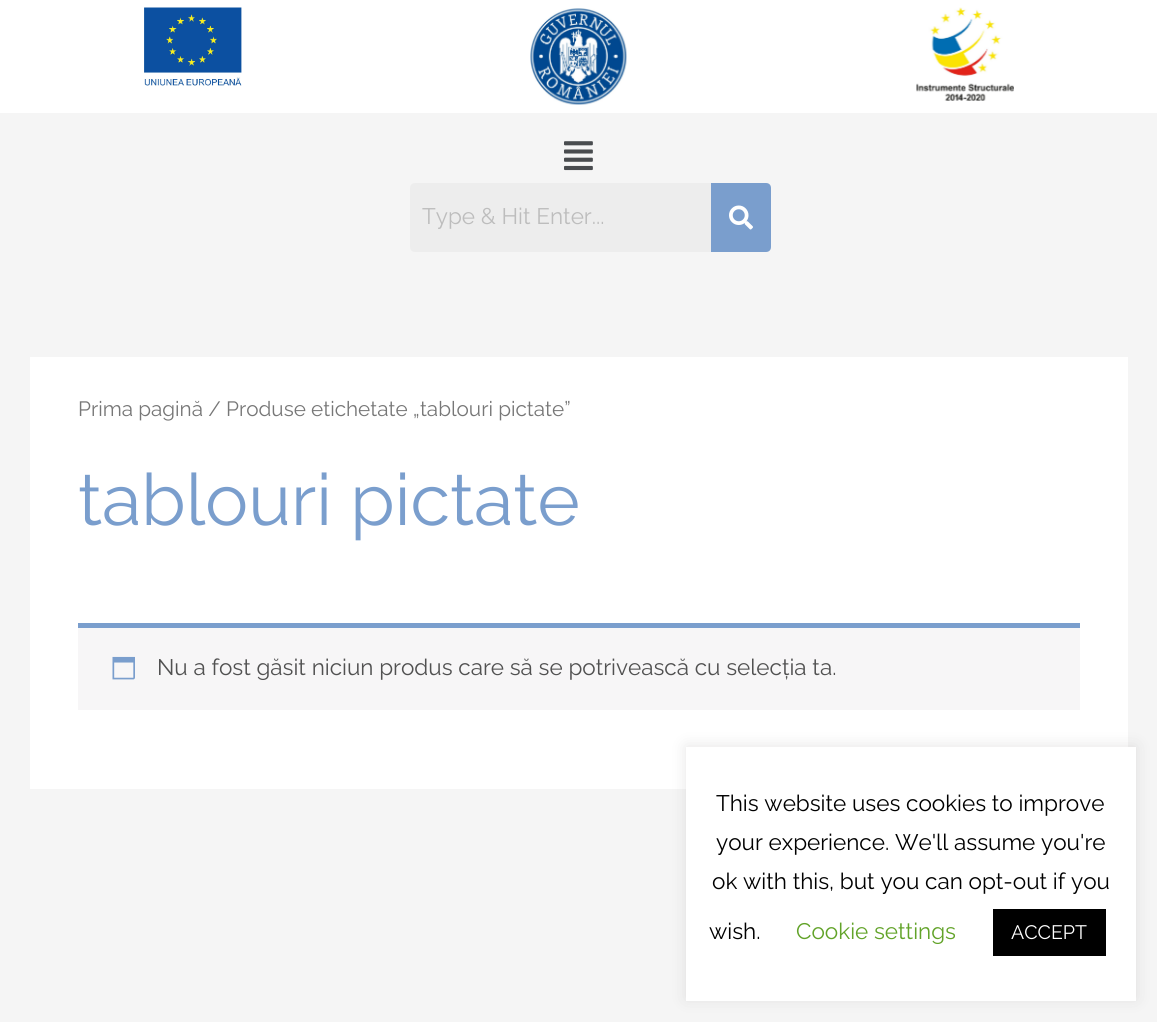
#include <cairo.h>
#include <math.h>
#include <stddef.h>

typedef struct { double x, y; const char *s; } line_t;

static void ink(cairo_t *ctx, unsigned color) {
    cairo_set_source_rgb(ctx, (color >> 16) / 255.0, (color >> 8 & 255) / 255.0, (color & 255) / 255.0);
}

static void round_path(cairo_t *ctx, double x, double y, double w, double h, double r) {
    cairo_new_sub_path(ctx);
    cairo_arc(ctx, x + w - r, y + h - r, r, 0, M_PI / 2);
    cairo_arc(ctx, x + r, y + h - r, r, M_PI / 2, M_PI);
    cairo_arc(ctx, x + r, y + r, r, M_PI, 1.5 * M_PI);
    cairo_arc(ctx, x + w - r, y + r, r, 1.5 * M_PI, 2 * M_PI);
    cairo_close_path(ctx);
}

static void blur_box(cairo_t *ctx, double x, double y, double w, double h, double r, double blur, double alpha) {
    cairo_push_group_with_content(ctx, CAIRO_CONTENT_ALPHA);
    cairo_set_operator(ctx, CAIRO_OPERATOR_SOURCE);
    for (int i = 15; i >= -15 && fmin(w, h) + blur * i / 3 > 0; i -= 2) {
        double e = blur * i / 6;
        cairo_set_source_rgba(ctx, 0, 0, 0, alpha * erfc((i - 1) / 8.5) / 2);
        round_path(ctx, x - e, y - e, w + 2 * e, h + 2 * e, fmax(0, fmin(r + e + blur * .6, fmin(w, h) / 2 + e)));
        cairo_fill(ctx);
    }
    cairo_pattern_t *soft = cairo_pop_group(ctx);
    cairo_mask(ctx, soft);
    cairo_pattern_destroy(soft);
}

static void paste(cairo_t *ctx, const char *path, double x, double y, double w, double h) {
    cairo_surface_t *image = cairo_image_surface_create_from_png(path);
    cairo_save(ctx);
    cairo_set_source_surface(ctx, image, x, y);
    cairo_rectangle(ctx, x, y, w, h);
    cairo_fill(ctx);
    cairo_restore(ctx);
    cairo_surface_destroy(image);
}

int main(void) {
    cairo_surface_t *surface = cairo_image_surface_create(CAIRO_FORMAT_RGB24, 1157, 1022);
    cairo_t *ctx = cairo_create(surface);
    cairo_font_options_t *options = cairo_font_options_create();
    cairo_font_options_set_hint_metrics(options, CAIRO_HINT_METRICS_OFF);
    cairo_font_options_set_hint_style(options, CAIRO_HINT_STYLE_NONE);
    cairo_set_font_options(ctx, options);
    cairo_set_miter_limit(ctx, 4);
    ink(ctx, 0xF5F5F5);
    cairo_paint(ctx);
    ink(ctx, 0xFFFFFF);
    cairo_rectangle(ctx, 0, 0, 1157, 113);
    cairo_fill(ctx);
    paste(ctx, "media/1.png", 144, 7, 98, 79);
    paste(ctx, "media/2.png", 530, 8, 97, 97);
    paste(ctx, "media/3.png", 916, 7, 98, 94);
    paste(ctx, "media/4.png", 564, 141, 29, 30);
    ink(ctx, 0xEDEDED);
    cairo_new_path(ctx);
    cairo_move_to(ctx, 415, 183);
    cairo_line_to(ctx, 711, 183);
    cairo_line_to(ctx, 711, 252);
    cairo_line_to(ctx, 415, 252);
    cairo_curve_to(ctx, 412, 252, 410, 250, 410, 247);
    cairo_line_to(ctx, 410, 188);
    cairo_curve_to(ctx, 410, 185, 412, 183, 415, 183);
    cairo_close_path(ctx);
    cairo_fill(ctx);
    cairo_select_font_face(ctx, "Raleway", CAIRO_FONT_SLANT_NORMAL, CAIRO_FONT_WEIGHT_NORMAL);
    cairo_set_font_size(ctx, 22.5);
    ink(ctx, 0xBDBDBD);
    cairo_move_to(ctx, 422, 224);
    cairo_show_text(ctx, "Type & Hit Enter...");
    ink(ctx, 0x7A9ECD);
    cairo_new_path(ctx);
    cairo_move_to(ctx, 711, 183);
    cairo_line_to(ctx, 766, 183);
    cairo_curve_to(ctx, 769, 183, 771, 185, 771, 188);
    cairo_line_to(ctx, 771, 247);
    cairo_curve_to(ctx, 771, 250, 769, 252, 766, 252);
    cairo_line_to(ctx, 711, 252);
    cairo_close_path(ctx);
    cairo_fill(ctx);
    paste(ctx, "media/5.png", 729, 205, 24, 25);
    ink(ctx, 0xFFFFFF);
    cairo_rectangle(ctx, 30, 357, 1098, 432);
    cairo_fill(ctx);
    cairo_set_font_size(ctx, 20.7);
    ink(ctx, 0x777777);
    cairo_move_to(ctx, 78, 416);
    cairo_show_text(ctx, "Prima pagină / Produse etichetate „tablouri pictate”");
    cairo_set_font_size(ctx, 72);
    ink(ctx, 0x7A9ECD);
    cairo_move_to(ctx, 78, 525);
    cairo_show_text(ctx, "tablouri pictate");
    ink(ctx, 0xF7F6F7);
    cairo_rectangle(ctx, 78, 628, 1002, 82);
    cairo_fill(ctx);
    ink(ctx, 0x7A9ECD);
    cairo_rectangle(ctx, 78, 623, 1002, 5);
    cairo_fill(ctx);
    paste(ctx, "media/6.png", 112, 656, 23, 24);
    cairo_set_font_size(ctx, 22.5);
    ink(ctx, 0x515151);
    cairo_move_to(ctx, 157, 675);
    cairo_show_text(ctx, "Nu a fost găsit niciun produs care să se potrivească cu selecția ta.");
    ink(ctx, 0xACABAB);
    blur_box(ctx, 686, 746, 450, 253, 0, 7.5, 0.3);
    ink(ctx, 0xFFFFFF);
    cairo_rectangle(ctx, 686, 747, 450, 254);
    cairo_fill(ctx);
    ink(ctx, 0x000000);
    {
        static const line_t items[] = {
            {716, 811, "This website uses cookies to improve"},
            {716, 850, "your experience. We'll assume you're"},
            {712, 889, "ok with this, but you can opt-out if you"},
            {709, 939, "wish."},
        };
        for (size_t i = 0; i < sizeof items / sizeof *items; i++) {
            cairo_move_to(ctx, items[i].x, items[i].y);
            cairo_show_text(ctx, items[i].s);
        }
    }
    ink(ctx, 0x62A329);
    cairo_move_to(ctx, 796, 939);
    cairo_show_text(ctx, "Cookie settings");
    ink(ctx, 0x000000);
    cairo_rectangle(ctx, 993, 909, 113, 47);
    cairo_fill(ctx);
    cairo_set_font_size(ctx, 19.5);
    ink(ctx, 0xFFFFFF);
    cairo_move_to(ctx, 1011, 939);
    cairo_show_text(ctx, "ACCEPT");
    cairo_surface_write_to_png(surface, "image.png");
    cairo_font_options_destroy(options);
    cairo_destroy(ctx);
    cairo_surface_destroy(surface);
    return 0;
}
